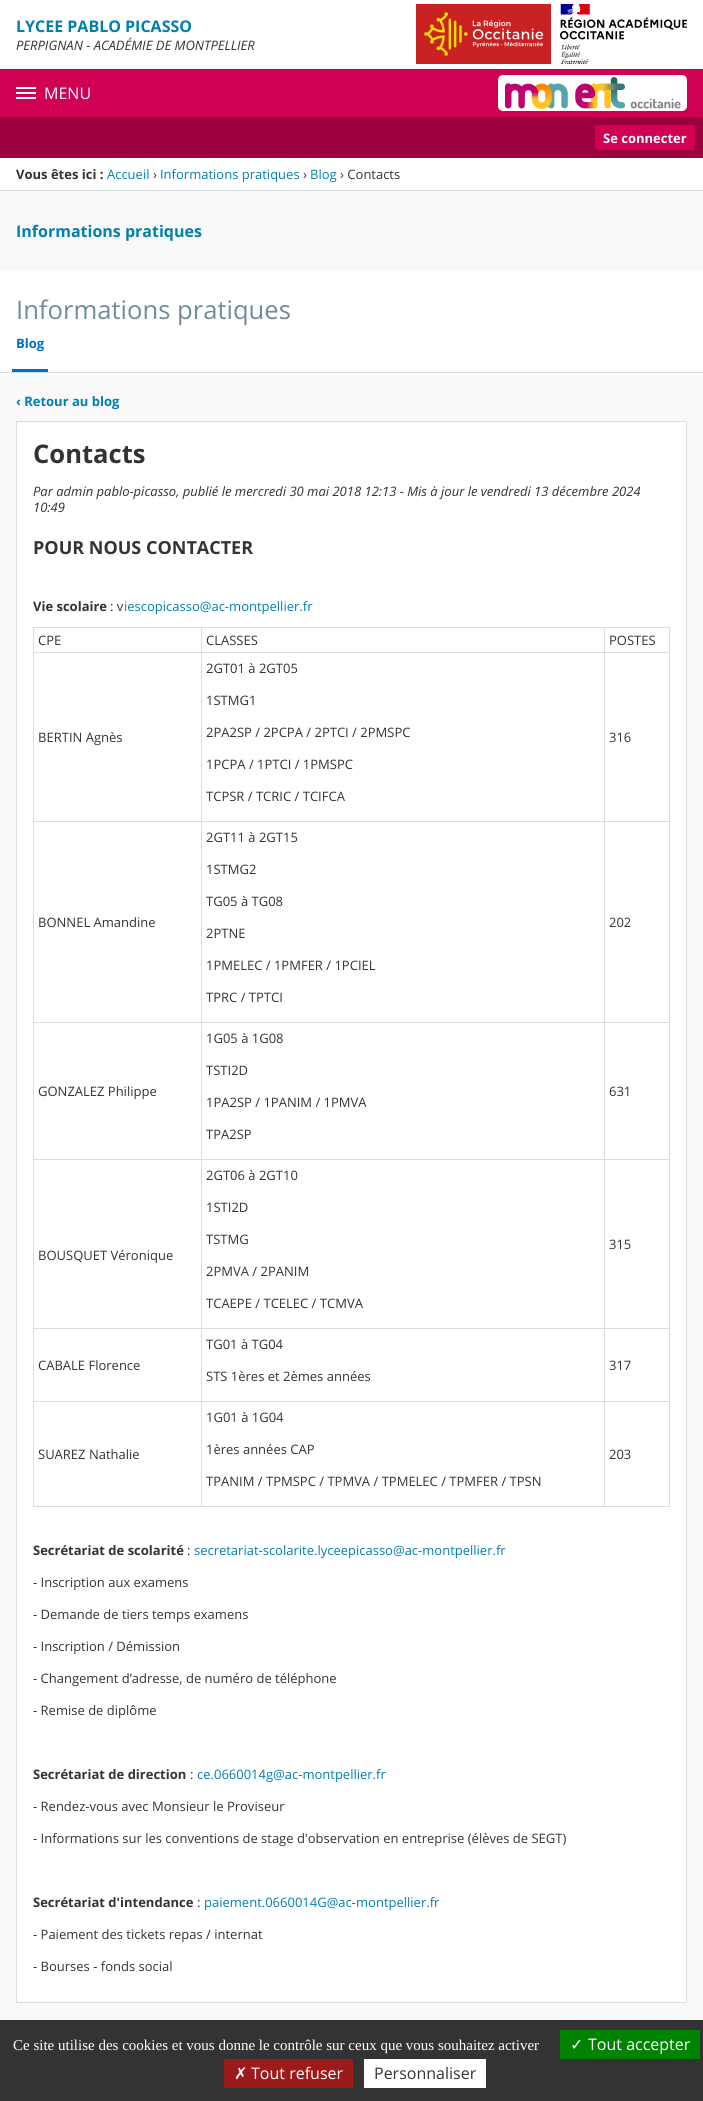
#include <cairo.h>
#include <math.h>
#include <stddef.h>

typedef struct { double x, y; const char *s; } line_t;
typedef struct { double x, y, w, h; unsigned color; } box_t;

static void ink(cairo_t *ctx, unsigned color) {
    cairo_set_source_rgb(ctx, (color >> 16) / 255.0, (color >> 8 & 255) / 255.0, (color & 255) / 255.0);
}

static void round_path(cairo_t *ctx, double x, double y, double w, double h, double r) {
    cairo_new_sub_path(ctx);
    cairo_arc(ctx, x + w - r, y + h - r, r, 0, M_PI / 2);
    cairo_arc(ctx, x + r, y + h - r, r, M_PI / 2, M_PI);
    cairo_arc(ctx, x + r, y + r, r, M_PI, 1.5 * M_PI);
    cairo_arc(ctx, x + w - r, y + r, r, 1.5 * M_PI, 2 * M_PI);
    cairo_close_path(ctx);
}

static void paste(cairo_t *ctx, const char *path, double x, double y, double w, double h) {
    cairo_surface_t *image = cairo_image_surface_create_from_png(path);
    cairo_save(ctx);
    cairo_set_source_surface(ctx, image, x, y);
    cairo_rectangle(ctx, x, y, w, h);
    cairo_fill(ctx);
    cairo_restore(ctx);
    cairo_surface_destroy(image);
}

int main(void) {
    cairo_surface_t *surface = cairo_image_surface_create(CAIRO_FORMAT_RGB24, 703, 2101);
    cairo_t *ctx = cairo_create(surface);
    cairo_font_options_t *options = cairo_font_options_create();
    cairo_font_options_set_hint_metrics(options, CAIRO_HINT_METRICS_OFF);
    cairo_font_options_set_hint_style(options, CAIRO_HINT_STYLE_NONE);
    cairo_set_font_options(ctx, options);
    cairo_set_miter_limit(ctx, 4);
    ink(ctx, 0xFFFFFF);
    cairo_paint(ctx);
    cairo_select_font_face(ctx, "Open Sans", CAIRO_FONT_SLANT_NORMAL, CAIRO_FONT_WEIGHT_BOLD);
    cairo_set_font_size(ctx, 16);
    ink(ctx, 0x017FAD);
    cairo_move_to(ctx, 16, 32);
    cairo_show_text(ctx, "LYCEE PABLO PICASSO");
    cairo_select_font_face(ctx, "Open Sans", CAIRO_FONT_SLANT_ITALIC, CAIRO_FONT_WEIGHT_NORMAL);
    cairo_set_font_size(ctx, 13);
    ink(ctx, 0x333333);
    cairo_move_to(ctx, 16, 50);
    cairo_show_text(ctx, "PERPIGNAN - ACADÉMIE DE MONTPELLIER");
    paste(ctx, "media/1.png", 416, 4, 135, 60);
    paste(ctx, "media/2.png", 560, 4, 127, 60);
    {
        static const box_t items[] = {
            {0, 69, 703, 48, 0xD00053},
            {16, 87, 20, 2, 0xFFFFFF},
            {16, 92, 20, 2, 0xFFFFFF},
            {16, 97, 20, 2, 0xFFFFFF},
        };
        for (size_t i = 0; i < sizeof items / sizeof *items; i++) {
            ink(ctx, items[i].color);
            cairo_rectangle(ctx, items[i].x, items[i].y, items[i].w, items[i].h);
            cairo_fill(ctx);
        }
    }
    cairo_select_font_face(ctx, "Open Sans", CAIRO_FONT_SLANT_NORMAL, CAIRO_FONT_WEIGHT_NORMAL);
    cairo_set_font_size(ctx, 16);
    cairo_move_to(ctx, 44, 99);
    cairo_show_text(ctx, "MENU");
    ink(ctx, 0x9D003F);
    cairo_rectangle(ctx, 0, 117, 703, 41);
    cairo_fill(ctx);
    paste(ctx, "media/3.png", 498, 75, 189, 36);
    ink(ctx, 0xD00053);
    round_path(ctx, 595, 125, 100, 25, 2);
    cairo_fill(ctx);
    cairo_select_font_face(ctx, "Open Sans", CAIRO_FONT_SLANT_NORMAL, CAIRO_FONT_WEIGHT_BOLD);
    cairo_set_font_size(ctx, 13);
    ink(ctx, 0xFFFFFF);
    cairo_move_to(ctx, 603, 143);
    cairo_show_text(ctx, "Se connecter");
    ink(ctx, 0xD7DEE2);
    cairo_rectangle(ctx, 0, 190, 703, 1);
    cairo_fill(ctx);
    ink(ctx, 0x333333);
    cairo_move_to(ctx, 16, 179);
    cairo_show_text(ctx, "Vous êtes ici :");
    cairo_select_font_face(ctx, "Open Sans", CAIRO_FONT_SLANT_NORMAL, CAIRO_FONT_WEIGHT_NORMAL);
    ink(ctx, 0x017FAD);
    cairo_move_to(ctx, 107, 179);
    cairo_show_text(ctx, "Accueil");
    ink(ctx, 0x333333);
    cairo_move_to(ctx, 153, 179);
    cairo_show_text(ctx, "›");
    ink(ctx, 0x017FAD);
    cairo_move_to(ctx, 160, 179);
    cairo_show_text(ctx, "Informations pratiques");
    ink(ctx, 0x333333);
    cairo_move_to(ctx, 303, 179);
    cairo_show_text(ctx, "›");
    ink(ctx, 0x017FAD);
    cairo_move_to(ctx, 310, 179);
    cairo_show_text(ctx, "Blog");
    ink(ctx, 0x333333);
    cairo_move_to(ctx, 340, 179);
    cairo_show_text(ctx, "› Contacts");
    ink(ctx, 0xF9F9F9);
    cairo_rectangle(ctx, 0, 191, 703, 1829);
    cairo_fill(ctx);
    cairo_select_font_face(ctx, "Open Sans", CAIRO_FONT_SLANT_NORMAL, CAIRO_FONT_WEIGHT_BOLD);
    cairo_set_font_size(ctx, 16);
    ink(ctx, 0x017FAD);
    cairo_move_to(ctx, 16, 237);
    cairo_show_text(ctx, "Informations pratiques");
    ink(ctx, 0xFFFFFF);
    cairo_rectangle(ctx, 0, 271, 703, 101);
    cairo_fill(ctx);
    ink(ctx, 0xD7DEE2);
    cairo_rectangle(ctx, 0, 372, 703, 1);
    cairo_fill(ctx);
    cairo_select_font_face(ctx, "Open Sans", CAIRO_FONT_SLANT_NORMAL, CAIRO_FONT_WEIGHT_NORMAL);
    cairo_set_font_size(ctx, 25.6);
    ink(ctx, 0x708C9A);
    cairo_move_to(ctx, 16, 319);
    cairo_show_text(ctx, "Informations pratiques");
    ink(ctx, 0x006DCC);
    cairo_rectangle(ctx, 12, 369, 36, 3);
    cairo_fill(ctx);
    cairo_select_font_face(ctx, "Open Sans", CAIRO_FONT_SLANT_NORMAL, CAIRO_FONT_WEIGHT_BOLD);
    cairo_set_font_size(ctx, 13);
    cairo_move_to(ctx, 16, 348);
    cairo_show_text(ctx, "Blog");
    ink(ctx, 0x017FAD);
    cairo_move_to(ctx, 16, 406);
    cairo_show_text(ctx, "‹ Retour au blog");
    ink(ctx, 0xFFFFFF);
    cairo_rectangle(ctx, 16.5, 421.5, 670, 1581);
    cairo_fill_preserve(ctx);
    ink(ctx, 0xD7DEE2);
    cairo_set_line_width(ctx, 1);
    cairo_stroke(ctx);
    cairo_set_font_size(ctx, 25.6);
    ink(ctx, 0x333333);
    cairo_move_to(ctx, 33, 463);
    cairo_show_text(ctx, "Contacts");
    cairo_select_font_face(ctx, "Open Sans", CAIRO_FONT_SLANT_ITALIC, CAIRO_FONT_WEIGHT_NORMAL);
    cairo_set_font_size(ctx, 13);
    cairo_move_to(ctx, 33, 496);
    cairo_show_text(ctx, "Par admin pablo-picasso, publié le mercredi 30 mai 2018 12:13 - Mis à jour le vendredi 13 décembre 2024");
    cairo_move_to(ctx, 33, 512);
    cairo_show_text(ctx, "10:49");
    cairo_select_font_face(ctx, "Open Sans", CAIRO_FONT_SLANT_NORMAL, CAIRO_FONT_WEIGHT_BOLD);
    cairo_set_font_size(ctx, 18);
    cairo_move_to(ctx, 33, 554);
    cairo_show_text(ctx, "POUR NOUS CONTACTER");
    cairo_set_font_size(ctx, 13);
    cairo_move_to(ctx, 33, 611);
    cairo_show_text(ctx, "Vie scolaire");
    cairo_select_font_face(ctx, "Open Sans", CAIRO_FONT_SLANT_NORMAL, CAIRO_FONT_WEIGHT_NORMAL);
    cairo_move_to(ctx, 110, 611);
    cairo_show_text(ctx, ": v");
    ink(ctx, 0x017FAD);
    cairo_move_to(ctx, 124, 611);
    cairo_show_text(ctx, "iescopicasso@ac-montpellier.fr");
    {
        static const box_t items[] = {
            {604, 627, 66, 1, 0xD7DEE2},
            {604, 652, 66, 1, 0xD7DEE2},
            {604, 821, 66, 1, 0xD7DEE2},
            {604, 1022, 66, 1, 0xD7DEE2},
            {604, 1159, 66, 1, 0xD7DEE2},
            {604, 1328, 66, 1, 0xD7DEE2},
            {604, 1401, 66, 1, 0xD7DEE2},
            {669, 1401, 1, 106, 0xD7DEE2},
            {604, 1506, 66, 1, 0xD7DEE2},
            {604, 1401, 1, 106, 0xD7DEE2},
            {201, 1401, 404, 1, 0xD7DEE2},
            {604, 1328, 1, 74, 0xD7DEE2},
            {201, 1328, 404, 1, 0xD7DEE2},
            {604, 1159, 1, 170, 0xD7DEE2},
            {201, 1159, 404, 1, 0xD7DEE2},
            {604, 1022, 1, 138, 0xD7DEE2},
            {201, 1022, 404, 1, 0xD7DEE2},
            {604, 821, 1, 202, 0xD7DEE2},
            {201, 821, 404, 1, 0xD7DEE2},
            {604, 652, 1, 170, 0xD7DEE2},
            {201, 652, 404, 1, 0xD7DEE2},
            {604, 627, 1, 26, 0xD7DEE2},
            {201, 627, 404, 1, 0xD7DEE2},
            {201, 1506, 404, 1, 0xD7DEE2},
            {201, 1401, 1, 106, 0xD7DEE2},
            {33, 1401, 169, 1, 0xD7DEE2},
            {201, 1328, 1, 74, 0xD7DEE2},
            {33, 1328, 169, 1, 0xD7DEE2},
            {201, 1159, 1, 170, 0xD7DEE2},
            {33, 1159, 169, 1, 0xD7DEE2},
            {201, 1022, 1, 138, 0xD7DEE2},
            {33, 1022, 169, 1, 0xD7DEE2},
            {201, 821, 1, 202, 0xD7DEE2},
            {33, 821, 169, 1, 0xD7DEE2},
            {201, 652, 1, 170, 0xD7DEE2},
            {33, 652, 169, 1, 0xD7DEE2},
            {201, 627, 1, 26, 0xD7DEE2},
            {33, 627, 169, 1, 0xD7DEE2},
            {33, 1506, 169, 1, 0xD7DEE2},
            {33, 1401, 1, 106, 0xD7DEE2},
            {33, 1328, 1, 74, 0xD7DEE2},
            {33, 1159, 1, 170, 0xD7DEE2},
            {33, 1022, 1, 138, 0xD7DEE2},
            {33, 821, 1, 202, 0xD7DEE2},
            {33, 652, 1, 170, 0xD7DEE2},
            {33, 627, 1, 26, 0xD7DEE2},
        };
        for (size_t i = 0; i < sizeof items / sizeof *items; i++) {
            ink(ctx, items[i].color);
            cairo_rectangle(ctx, items[i].x, items[i].y, items[i].w, items[i].h);
            cairo_fill(ctx);
        }
    }
    ink(ctx, 0x333333);
    cairo_move_to(ctx, 38, 645);
    cairo_show_text(ctx, "CPE");
    cairo_move_to(ctx, 206, 645);
    cairo_show_text(ctx, "CLASSES");
    {
        static const box_t items[] = {
            {669, 1328, 1, 74, 0xD7DEE2},
            {669, 1159, 1, 170, 0xD7DEE2},
            {669, 1022, 1, 138, 0xD7DEE2},
            {669, 821, 1, 202, 0xD7DEE2},
            {669, 652, 1, 170, 0xD7DEE2},
            {669, 627, 1, 26, 0xD7DEE2},
        };
        for (size_t i = 0; i < sizeof items / sizeof *items; i++) {
            ink(ctx, items[i].color);
            cairo_rectangle(ctx, items[i].x, items[i].y, items[i].w, items[i].h);
            cairo_fill(ctx);
        }
    }
    ink(ctx, 0x333333);
    {
        static const line_t items[] = {
            {609, 645, "POSTES"},
            {38, 742, "BERTIN Agnès"},
            {206, 673, "2GT01 à 2GT05"},
            {206, 705, "1STMG1"},
            {206, 737, "2PA2SP / 2PCPA / 2PTCI / 2PMSPC"},
            {206, 769, "1PCPA / 1PTCI / 1PMSPC"},
            {206, 801, "TCPSR / TCRIC / TCIFCA"},
            {609, 742, "316"},
            {38, 927, "BONNEL Amandine"},
            {206, 842, "2GT11 à 2GT15"},
            {206, 874, "1STMG2"},
            {206, 906, "TG05 à TG08"},
            {206, 938, "2PTNE"},
            {206, 970, "1PMELEC / 1PMFER / 1PCIEL"},
            {206, 1002, "TPRC / TPTCI"},
            {609, 927, "202"},
            {38, 1096, "GONZALEZ Philippe"},
            {206, 1043, "1G05 à 1G08"},
            {206, 1075, "TSTI2D"},
            {206, 1107, "1PA2SP / 1PANIM / 1PMVA"},
            {206, 1139, "TPA2SP"},
            {609, 1096, "631"},
            {206, 1180, "2GT06 à 2GT10"},
            {206, 1212, "1STI2D"},
            {206, 1244, "TSTMG"},
            {206, 1276, "2PMVA / 2PANIM"},
            {206, 1308, "TCAEPE / TCELEC / TCMVA"},
            {609, 1249, "315"},
            {38, 1260, "BOUSQUET Véronique"},
            {38, 1370, "CABALE Florence"},
            {206, 1349, "TG01 à TG04"},
            {206, 1381, "STS 1ères et 2èmes années"},
            {609, 1370, "317"},
            {38, 1459, "SUAREZ Nathalie"},
            {206, 1422, "1G01 à 1G04"},
            {206, 1454, "1ères années CAP"},
            {206, 1486, "TPANIM / TPMSPC / TPMVA / TPMELEC / TPMFER / TPSN"},
            {609, 1459, "203"},
        };
        for (size_t i = 0; i < sizeof items / sizeof *items; i++) {
            cairo_move_to(ctx, items[i].x, items[i].y);
            cairo_show_text(ctx, items[i].s);
        }
    }
    cairo_select_font_face(ctx, "Open Sans", CAIRO_FONT_SLANT_NORMAL, CAIRO_FONT_WEIGHT_BOLD);
    cairo_move_to(ctx, 33, 1555);
    cairo_show_text(ctx, "Secrétariat de scolarité");
    cairo_select_font_face(ctx, "Open Sans", CAIRO_FONT_SLANT_NORMAL, CAIRO_FONT_WEIGHT_NORMAL);
    cairo_move_to(ctx, 187, 1555);
    cairo_show_text(ctx, ":");
    ink(ctx, 0x017FAD);
    cairo_move_to(ctx, 194, 1555);
    cairo_show_text(ctx, "secretariat-scolarite.lyceepicasso@ac-montpellier.fr");
    ink(ctx, 0x333333);
    {
        static const line_t items[] = {
            {33, 1587, "- Inscription aux examens"},
            {33, 1619, "- Demande de tiers temps examens"},
            {33, 1651, "- Inscription / Démission"},
            {33, 1683, "- Changement d’adresse, de numéro de téléphone"},
            {33, 1715, "- Remise de diplôme"},
        };
        for (size_t i = 0; i < sizeof items / sizeof *items; i++) {
            cairo_move_to(ctx, items[i].x, items[i].y);
            cairo_show_text(ctx, items[i].s);
        }
    }
    cairo_select_font_face(ctx, "Open Sans", CAIRO_FONT_SLANT_NORMAL, CAIRO_FONT_WEIGHT_BOLD);
    cairo_move_to(ctx, 33, 1779);
    cairo_show_text(ctx, "Secrétariat de direction");
    cairo_select_font_face(ctx, "Open Sans", CAIRO_FONT_SLANT_NORMAL, CAIRO_FONT_WEIGHT_NORMAL);
    cairo_move_to(ctx, 190, 1779);
    cairo_show_text(ctx, ":");
    ink(ctx, 0x017FAD);
    cairo_move_to(ctx, 197, 1779);
    cairo_show_text(ctx, "ce.0660014g@ac-montpellier.fr");
    ink(ctx, 0x333333);
    cairo_move_to(ctx, 33, 1811);
    cairo_show_text(ctx, "- Rendez-vous avec Monsieur le Proviseur");
    cairo_move_to(ctx, 33, 1843);
    cairo_show_text(ctx, "- Informations sur les conventions de stage d'observation en entreprise (élèves de SEGT)");
    cairo_select_font_face(ctx, "Open Sans", CAIRO_FONT_SLANT_NORMAL, CAIRO_FONT_WEIGHT_BOLD);
    cairo_move_to(ctx, 33, 1907);
    cairo_show_text(ctx, "Secrétariat d'intendance");
    cairo_select_font_face(ctx, "Open Sans", CAIRO_FONT_SLANT_NORMAL, CAIRO_FONT_WEIGHT_NORMAL);
    cairo_move_to(ctx, 197, 1907);
    cairo_show_text(ctx, ":");
    ink(ctx, 0x017FAD);
    cairo_move_to(ctx, 204, 1907);
    cairo_show_text(ctx, "paiement.0660014G@ac-montpellier.fr");
    ink(ctx, 0x333333);
    cairo_move_to(ctx, 33, 1939);
    cairo_show_text(ctx, "- Paiement des tickets repas / internat");
    cairo_move_to(ctx, 33, 1971);
    cairo_show_text(ctx, "- Bourses - fonds social");
    cairo_rectangle(ctx, 0, 2020, 703, 81);
    cairo_fill(ctx);
    cairo_select_font_face(ctx, "Liberation Serif", CAIRO_FONT_SLANT_NORMAL, CAIRO_FONT_WEIGHT_NORMAL);
    cairo_set_font_size(ctx, 15);
    ink(ctx, 0xFFFFFF);
    cairo_move_to(ctx, 13, 2050);
    cairo_show_text(ctx, "Ce site utilise des cookies et vous donne le contrôle sur ceux que vous souhaitez activer");
    ink(ctx, 0x008300);
    cairo_rectangle(ctx, 560, 2030, 140, 29);
    cairo_fill(ctx);
    cairo_select_font_face(ctx, "DejaVu Sans", CAIRO_FONT_SLANT_NORMAL, CAIRO_FONT_WEIGHT_NORMAL);
    cairo_set_font_size(ctx, 16);
    ink(ctx, 0xFFFFFF);
    cairo_move_to(ctx, 570, 2050);
    cairo_show_text(ctx, "✓");
    cairo_select_font_face(ctx, "Open Sans", CAIRO_FONT_SLANT_NORMAL, CAIRO_FONT_WEIGHT_NORMAL);
    cairo_move_to(ctx, 588, 2050);
    cairo_show_text(ctx, "Tout accepter");
    ink(ctx, 0x9C1A1A);
    cairo_rectangle(ctx, 224, 2059, 129, 29);
    cairo_fill(ctx);
    cairo_select_font_face(ctx, "DejaVu Sans", CAIRO_FONT_SLANT_NORMAL, CAIRO_FONT_WEIGHT_NORMAL);
    ink(ctx, 0xFFFFFF);
    cairo_move_to(ctx, 234, 2079);
    cairo_show_text(ctx, "✗");
    cairo_select_font_face(ctx, "Open Sans", CAIRO_FONT_SLANT_NORMAL, CAIRO_FONT_WEIGHT_NORMAL);
    cairo_move_to(ctx, 251, 2079);
    cairo_show_text(ctx, "Tout refuser");
    cairo_rectangle(ctx, 364, 2059, 122, 29);
    cairo_fill(ctx);
    ink(ctx, 0x333333);
    cairo_move_to(ctx, 374, 2079);
    cairo_show_text(ctx, "Personnaliser");
    cairo_surface_write_to_png(surface, "image.png");
    cairo_font_options_destroy(options);
    cairo_destroy(ctx);
    cairo_surface_destroy(surface);
    return 0;
}
